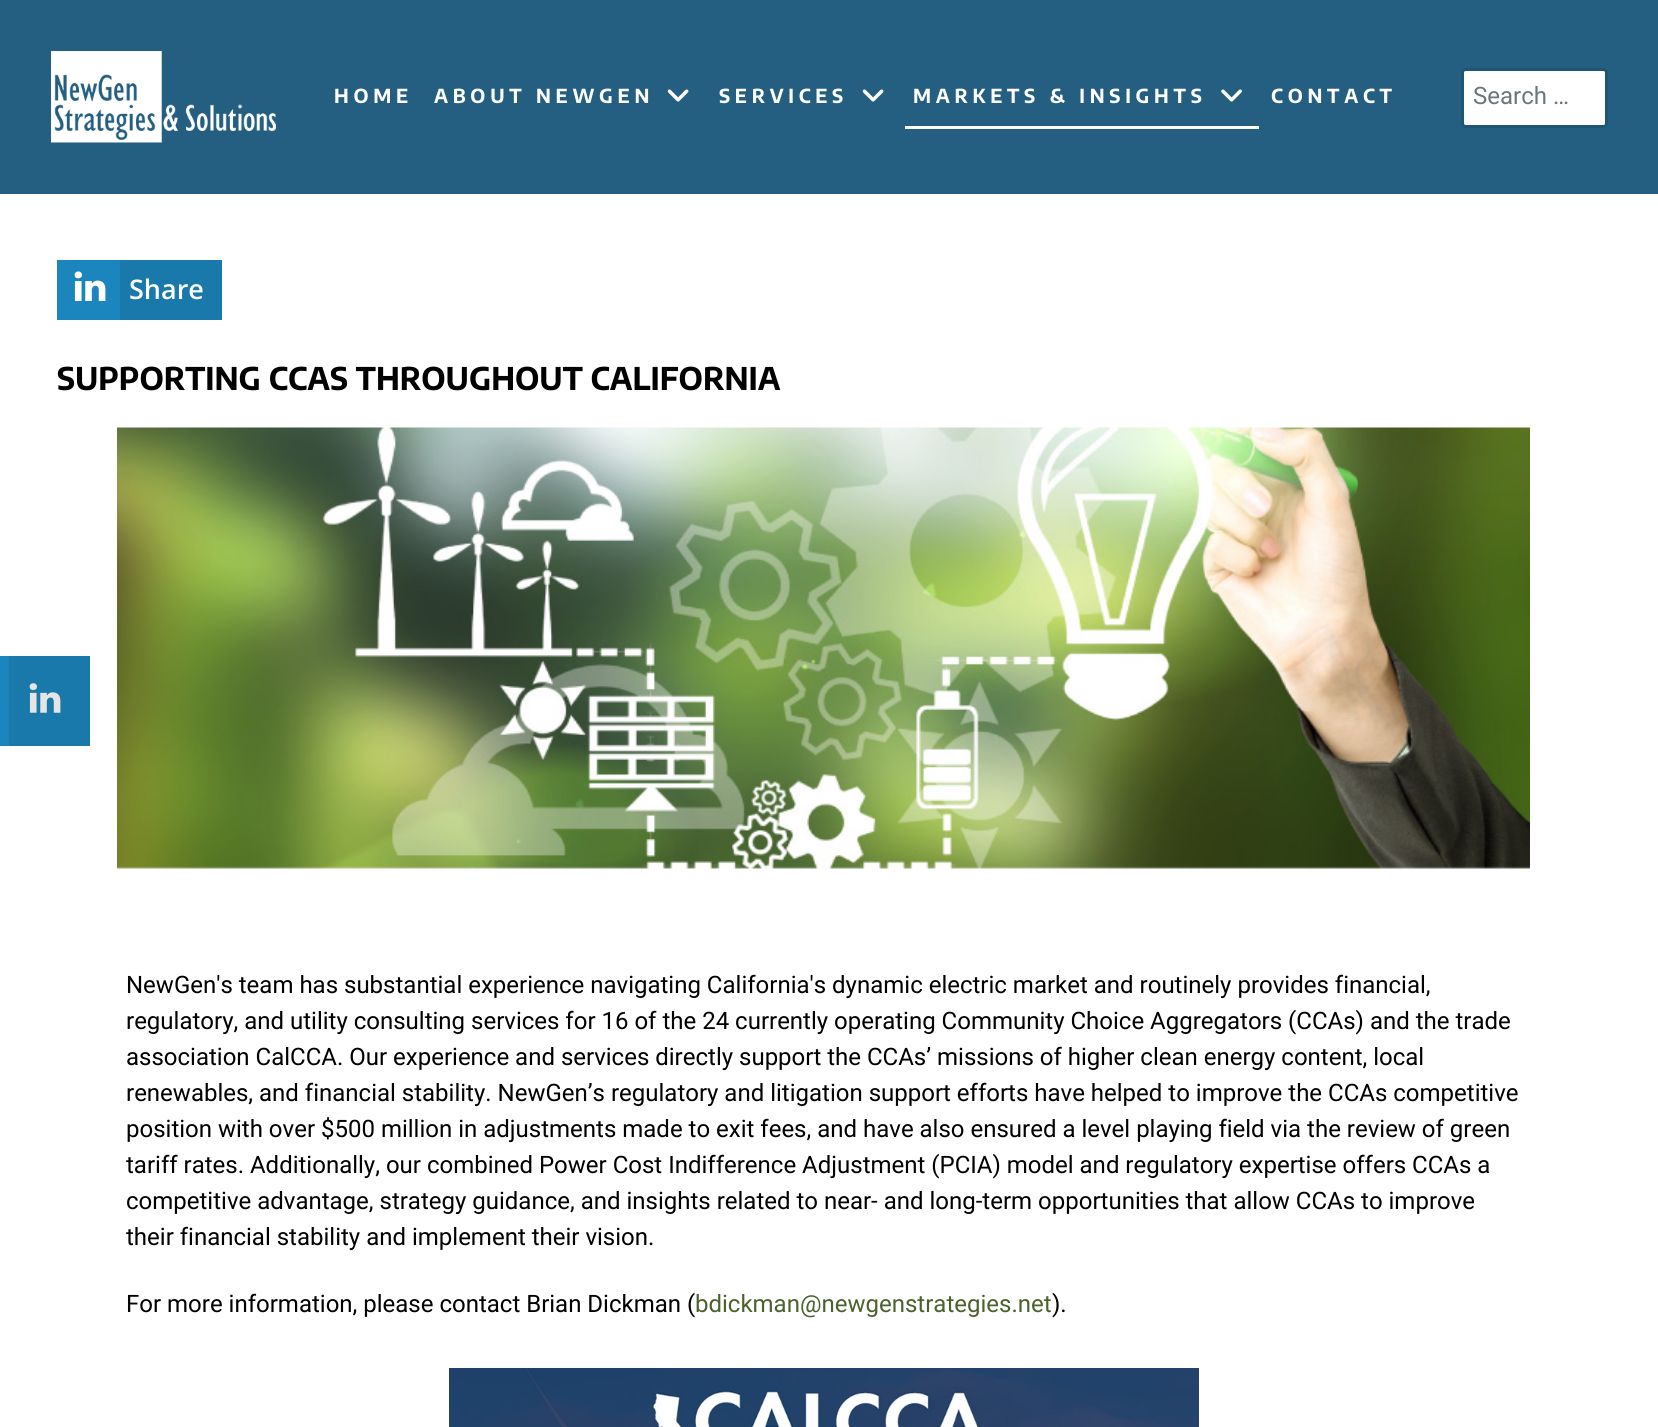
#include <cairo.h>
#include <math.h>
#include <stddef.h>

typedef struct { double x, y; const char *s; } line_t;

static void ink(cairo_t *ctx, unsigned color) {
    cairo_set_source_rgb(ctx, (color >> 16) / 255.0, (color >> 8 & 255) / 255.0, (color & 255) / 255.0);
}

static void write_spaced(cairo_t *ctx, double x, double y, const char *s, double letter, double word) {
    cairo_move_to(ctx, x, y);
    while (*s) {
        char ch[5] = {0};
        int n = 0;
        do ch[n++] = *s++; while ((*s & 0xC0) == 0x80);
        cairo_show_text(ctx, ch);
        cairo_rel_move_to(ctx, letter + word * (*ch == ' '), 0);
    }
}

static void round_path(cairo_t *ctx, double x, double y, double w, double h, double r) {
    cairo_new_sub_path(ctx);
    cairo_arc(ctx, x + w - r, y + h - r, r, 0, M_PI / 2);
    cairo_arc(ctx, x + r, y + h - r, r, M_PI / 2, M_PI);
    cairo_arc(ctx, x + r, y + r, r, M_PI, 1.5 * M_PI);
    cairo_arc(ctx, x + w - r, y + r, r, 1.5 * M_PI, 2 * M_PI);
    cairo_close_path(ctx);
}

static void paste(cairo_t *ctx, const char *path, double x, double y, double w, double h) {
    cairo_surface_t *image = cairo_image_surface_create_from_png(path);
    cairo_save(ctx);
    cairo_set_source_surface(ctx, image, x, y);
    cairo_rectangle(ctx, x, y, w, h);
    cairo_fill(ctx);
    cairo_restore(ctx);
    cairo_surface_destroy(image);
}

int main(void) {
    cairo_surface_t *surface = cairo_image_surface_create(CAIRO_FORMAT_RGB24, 1658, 1427);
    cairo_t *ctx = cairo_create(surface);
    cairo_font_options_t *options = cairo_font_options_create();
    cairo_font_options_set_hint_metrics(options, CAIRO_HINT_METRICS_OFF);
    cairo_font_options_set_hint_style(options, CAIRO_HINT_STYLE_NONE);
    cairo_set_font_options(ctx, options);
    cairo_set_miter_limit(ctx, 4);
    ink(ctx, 0xFFFFFF);
    cairo_paint(ctx);
    ink(ctx, 0x1B86BD);
    cairo_rectangle(ctx, 0, 656, 9, 90);
    cairo_fill(ctx);
    ink(ctx, 0x1879AA);
    cairo_rectangle(ctx, 9, 656, 81, 90);
    cairo_fill(ctx);
    paste(ctx, "media/1.png", 29, 683, 32, 30);
    ink(ctx, 0x245F82);
    cairo_rectangle(ctx, 0, 0, 1658, 194);
    cairo_fill(ctx);
    paste(ctx, "media/2.png", 51, 51, 225, 92);
    cairo_select_font_face(ctx, "Encode Sans Condensed Thin", CAIRO_FONT_SLANT_NORMAL, CAIRO_FONT_WEIGHT_NORMAL);
    cairo_set_font_size(ctx, 19.25);
    ink(ctx, 0xFFFFFF);
    write_spaced(ctx, 334, 103, "HOME", 4.75, 0);
    write_spaced(ctx, 434, 103, "ABOUT NEWGEN", 4.75, 0);
    paste(ctx, "media/3.png", 667, 89, 22, 13);
    write_spaced(ctx, 719, 103, "SERVICES", 4.75, 0);
    paste(ctx, "media/3.png", 862, 89, 22, 13);
    cairo_rectangle(ctx, 905, 126, 354, 3);
    cairo_fill(ctx);
    write_spaced(ctx, 913, 103, "MARKETS & INSIGHTS", 4.75, 0);
    paste(ctx, "media/4.png", 1221, 89, 21, 13);
    write_spaced(ctx, 1271, 103, "CONTACT", 4.75, 0);
    round_path(ctx, 1464, 71, 141, 54, 1.5);
    cairo_fill(ctx);
    round_path(ctx, 1462.5, 69.5, 144, 57, 3.5);
    cairo_set_source_rgba(ctx, 0, 0, 0, 0.1);
    cairo_set_line_width(ctx, 3);
    cairo_stroke(ctx);
    cairo_select_font_face(ctx, "Roboto", CAIRO_FONT_SLANT_NORMAL, CAIRO_FONT_WEIGHT_NORMAL);
    cairo_set_font_size(ctx, 24);
    ink(ctx, 0x6C757D);
    cairo_move_to(ctx, 1473, 104);
    cairo_show_text(ctx, "Search …");
    ink(ctx, 0x1B86BD);
    cairo_rectangle(ctx, 57, 260, 63, 60);
    cairo_fill(ctx);
    paste(ctx, "media/5.png", 74, 271, 32, 30);
    ink(ctx, 0x1879AA);
    cairo_rectangle(ctx, 120, 260, 102, 60);
    cairo_fill(ctx);
    cairo_select_font_face(ctx, "Open Sans SemiBold", CAIRO_FONT_SLANT_NORMAL, CAIRO_FONT_WEIGHT_NORMAL);
    cairo_set_font_size(ctx, 27);
    ink(ctx, 0xFFFFFF);
    cairo_move_to(ctx, 129, 299);
    cairo_show_text(ctx, "Share");
    cairo_select_font_face(ctx, "Encode Sans Condensed Thin", CAIRO_FONT_SLANT_NORMAL, CAIRO_FONT_WEIGHT_NORMAL);
    cairo_set_font_size(ctx, 31.2);
    ink(ctx, 0x000000);
    cairo_move_to(ctx, 57, 390);
    cairo_show_text(ctx, "SUPPORTING CCAS THROUGHOUT CALIFORNIA");
    paste(ctx, "media/6.png", 117, 427, 1413, 442);
    cairo_select_font_face(ctx, "Roboto", CAIRO_FONT_SLANT_NORMAL, CAIRO_FONT_WEIGHT_NORMAL);
    cairo_set_font_size(ctx, 24);
    {
        static const line_t items[] = {
            {126, 993, "NewGen's team has substantial experience navigating California's dynamic electric market and routinely provides financial,"},
            {126, 1029, "regulatory, and utility consulting services for 16 of the 24 currently operating Community Choice Aggregators (CCAs) and the trade"},
            {126, 1065, "association CalCCA. Our experience and services directly support the CCAs’ missions of higher clean energy content, local"},
            {126, 1101, "renewables, and financial stability. NewGen’s regulatory and litigation support efforts have helped to improve the CCAs competitive"},
            {126, 1137, "position with over $500 million in adjustments made to exit fees, and have also ensured a level playing field via the review of green"},
            {126, 1173, "tariff rates. Additionally, our combined Power Cost Indifference Adjustment (PCIA) model and regulatory expertise offers CCAs a"},
            {126, 1209, "competitive advantage, strategy guidance, and insights related to near- and long-term opportunities that allow CCAs to improve"},
            {126, 1245, "their financial stability and implement their vision."},
            {126, 1312, "For more information, please contact Brian Dickman ("},
        };
        for (size_t i = 0; i < sizeof items / sizeof *items; i++) {
            cairo_move_to(ctx, items[i].x, items[i].y);
            cairo_show_text(ctx, items[i].s);
        }
    }
    ink(ctx, 0x4B622C);
    cairo_move_to(ctx, 695, 1312);
    cairo_show_text(ctx, "bdickman@newgenstrategies.net");
    ink(ctx, 0x000000);
    cairo_move_to(ctx, 1052, 1312);
    cairo_show_text(ctx, ").");
    paste(ctx, "media/7.png", 449, 1368, 750, 59);
    cairo_surface_write_to_png(surface, "image.png");
    cairo_font_options_destroy(options);
    cairo_destroy(ctx);
    cairo_surface_destroy(surface);
    return 0;
}
